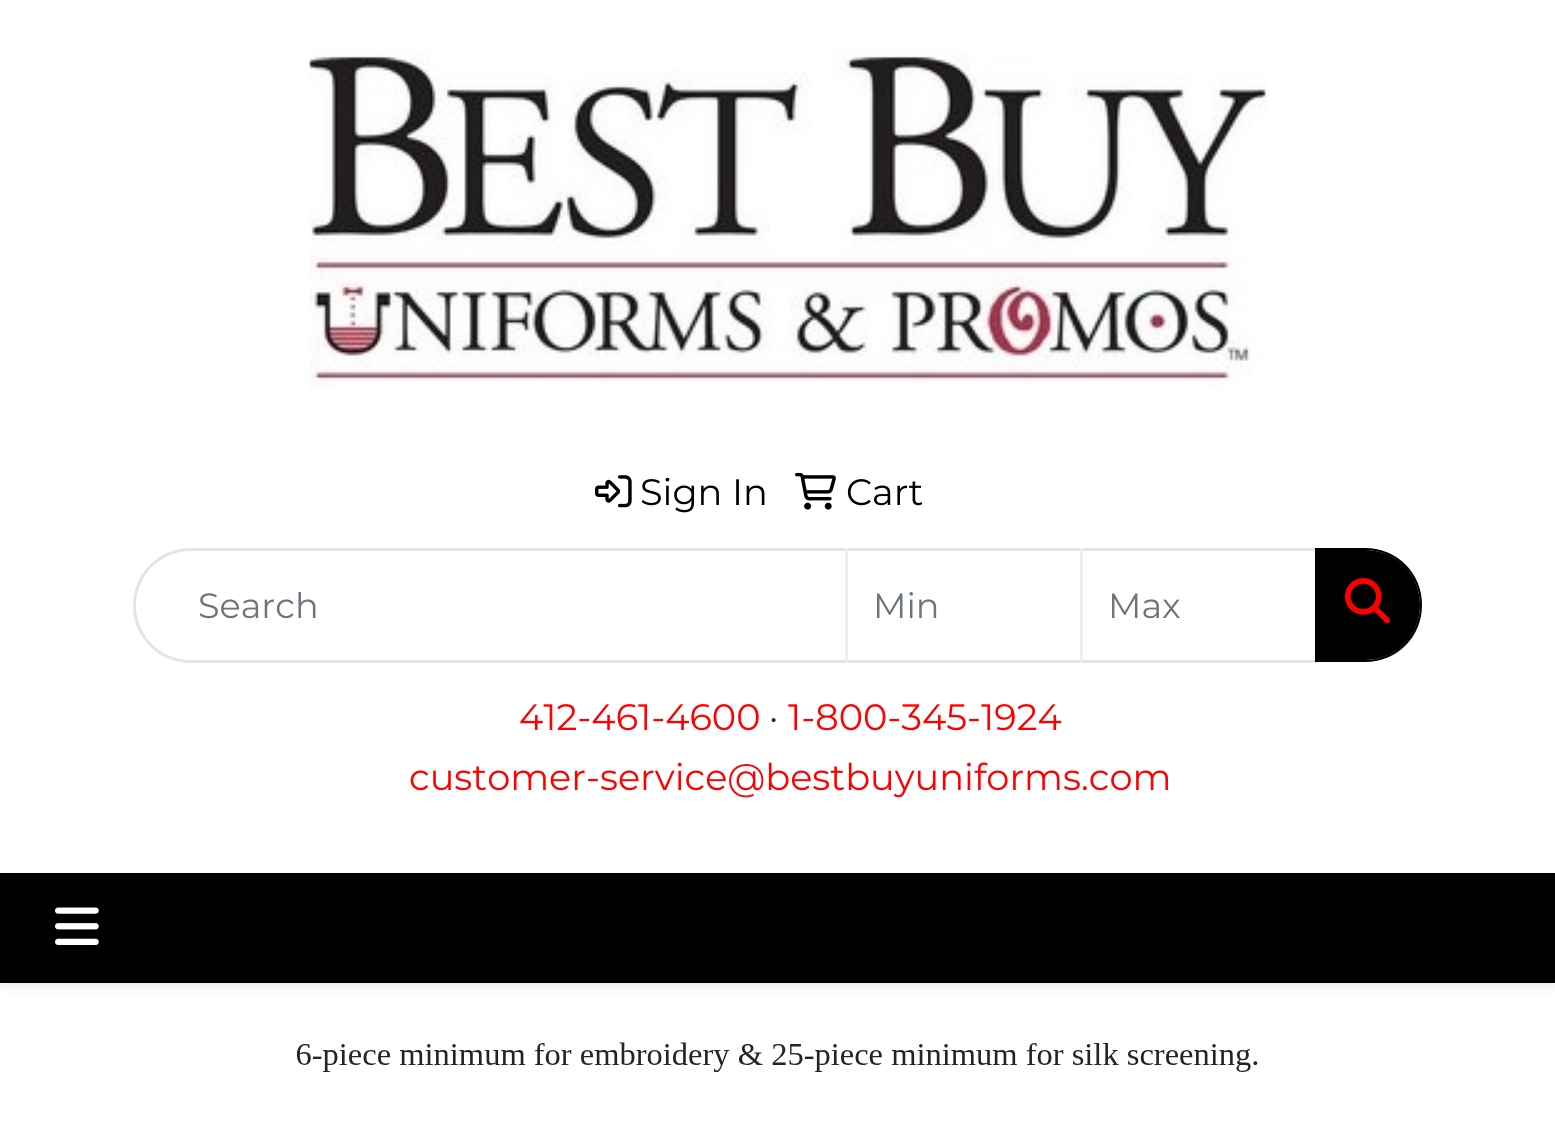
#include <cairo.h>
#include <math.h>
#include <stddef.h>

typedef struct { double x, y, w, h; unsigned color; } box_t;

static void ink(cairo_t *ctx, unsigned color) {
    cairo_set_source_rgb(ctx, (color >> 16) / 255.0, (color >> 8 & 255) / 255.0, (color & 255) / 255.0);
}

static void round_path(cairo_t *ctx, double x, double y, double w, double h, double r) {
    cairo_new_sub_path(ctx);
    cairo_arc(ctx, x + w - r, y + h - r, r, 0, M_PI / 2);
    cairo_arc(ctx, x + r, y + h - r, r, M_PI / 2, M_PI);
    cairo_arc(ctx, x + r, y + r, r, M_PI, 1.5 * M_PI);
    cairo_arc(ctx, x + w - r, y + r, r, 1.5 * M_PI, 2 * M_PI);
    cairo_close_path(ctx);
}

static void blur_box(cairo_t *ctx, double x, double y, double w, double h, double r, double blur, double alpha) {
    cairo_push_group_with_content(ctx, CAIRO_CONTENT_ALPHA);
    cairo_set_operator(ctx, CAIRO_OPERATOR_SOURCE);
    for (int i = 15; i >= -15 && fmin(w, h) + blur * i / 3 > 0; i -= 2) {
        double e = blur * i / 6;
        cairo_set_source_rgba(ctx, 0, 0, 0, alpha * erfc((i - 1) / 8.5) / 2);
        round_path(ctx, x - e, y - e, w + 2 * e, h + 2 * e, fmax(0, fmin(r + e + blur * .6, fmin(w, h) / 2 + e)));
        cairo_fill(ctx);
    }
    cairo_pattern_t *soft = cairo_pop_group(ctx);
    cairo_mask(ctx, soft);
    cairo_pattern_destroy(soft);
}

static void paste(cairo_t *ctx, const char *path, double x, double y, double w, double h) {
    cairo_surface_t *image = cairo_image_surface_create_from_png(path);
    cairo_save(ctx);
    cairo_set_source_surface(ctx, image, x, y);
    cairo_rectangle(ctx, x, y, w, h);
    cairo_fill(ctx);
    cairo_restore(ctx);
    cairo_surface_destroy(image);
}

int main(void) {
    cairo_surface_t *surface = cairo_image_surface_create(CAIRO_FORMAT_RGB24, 1555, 1128);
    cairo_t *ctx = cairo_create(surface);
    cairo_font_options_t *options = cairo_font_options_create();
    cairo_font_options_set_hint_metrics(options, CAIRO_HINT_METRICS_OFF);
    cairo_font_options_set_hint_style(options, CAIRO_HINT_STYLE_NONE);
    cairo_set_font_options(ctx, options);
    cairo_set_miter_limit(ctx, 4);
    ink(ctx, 0xFFFFFF);
    cairo_paint(ctx);
    paste(ctx, "media/1.png", 309, 50, 959, 338);
    paste(ctx, "media/2.png", 595, 475, 37, 33);
    cairo_select_font_face(ctx, "Montserrat Thin", CAIRO_FONT_SLANT_NORMAL, CAIRO_FONT_WEIGHT_NORMAL);
    cairo_set_font_size(ctx, 36.7);
    ink(ctx, 0x000000);
    cairo_move_to(ctx, 640, 505);
    cairo_show_text(ctx, "Sign In");
    paste(ctx, "media/3.png", 795, 472, 41, 38);
    cairo_move_to(ctx, 846, 505);
    cairo_show_text(ctx, "Cart");
    cairo_new_path(ctx);
    cairo_move_to(ctx, 190.5, 549.5);
    cairo_line_to(ctx, 846.5, 549.5);
    cairo_line_to(ctx, 846.5, 661.5);
    cairo_line_to(ctx, 190.5, 661.5);
    cairo_curve_to(ctx, 159.5, 661.5, 134.5, 636.5, 134.5, 605.5);
    cairo_curve_to(ctx, 134.5, 574.5, 159.5, 549.5, 190.5, 549.5);
    cairo_close_path(ctx);
    ink(ctx, 0xE4E4E4);
    cairo_set_line_width(ctx, 3);
    cairo_stroke(ctx);
    cairo_set_font_size(ctx, 35);
    ink(ctx, 0x6C757D);
    cairo_move_to(ctx, 198, 618);
    cairo_show_text(ctx, "Search");
    {
        static const box_t items[] = {
            {845, 548, 473, 3, 0xE4E4E4},
            {845, 660, 473, 3, 0xE4E4E4},
            {845, 548, 3, 115, 0xEFEFEF},
        };
        for (size_t i = 0; i < sizeof items / sizeof *items; i++) {
            ink(ctx, items[i].color);
            cairo_rectangle(ctx, items[i].x, items[i].y, items[i].w, items[i].h);
            cairo_fill(ctx);
        }
    }
    ink(ctx, 0x6C757D);
    cairo_move_to(ctx, 873, 618);
    cairo_show_text(ctx, "Min");
    ink(ctx, 0xEFEFEF);
    cairo_rectangle(ctx, 1080, 548, 3, 115);
    cairo_fill(ctx);
    ink(ctx, 0x6C757D);
    cairo_move_to(ctx, 1108, 618);
    cairo_show_text(ctx, "Max");
    ink(ctx, 0x000000);
    cairo_new_path(ctx);
    cairo_move_to(ctx, 1315, 550);
    cairo_line_to(ctx, 1365, 550);
    cairo_curve_to(ctx, 1395.5, 550, 1420, 574.5, 1420, 605);
    cairo_curve_to(ctx, 1420, 635.5, 1395.5, 660, 1365, 660);
    cairo_line_to(ctx, 1315, 660);
    cairo_close_path(ctx);
    cairo_fill(ctx);
    cairo_set_fill_rule(ctx, CAIRO_FILL_RULE_EVEN_ODD);
    cairo_new_path(ctx);
    cairo_move_to(ctx, 1315, 548);
    cairo_line_to(ctx, 1365, 548);
    cairo_curve_to(ctx, 1397, 548, 1422, 573, 1422, 605);
    cairo_curve_to(ctx, 1422, 637, 1397, 662, 1365, 662);
    cairo_line_to(ctx, 1315, 662);
    cairo_close_path(ctx);
    cairo_move_to(ctx, 1315, 550);
    cairo_line_to(ctx, 1365, 550);
    cairo_curve_to(ctx, 1395, 550, 1420, 575, 1420, 605);
    cairo_curve_to(ctx, 1420, 635, 1395, 660, 1365, 660);
    cairo_line_to(ctx, 1315, 660);
    cairo_close_path(ctx);
    cairo_fill(ctx);
    paste(ctx, "media/4.png", 1345, 578, 45, 46);
    cairo_set_font_size(ctx, 36.7);
    ink(ctx, 0xFF0000);
    cairo_move_to(ctx, 519, 730);
    cairo_show_text(ctx, "412-461-4600");
    ink(ctx, 0x212529);
    cairo_move_to(ctx, 769, 730);
    cairo_show_text(ctx, "·");
    ink(ctx, 0xFF0000);
    cairo_move_to(ctx, 788, 730);
    cairo_show_text(ctx, "1-800-345-1924");
    cairo_move_to(ctx, 409, 790);
    cairo_show_text(ctx, "customer-service@bestbuyuniforms.com");
    ink(ctx, 0x000000);
    blur_box(ctx, 0, 878, 1555, 110, 0, 5, 0.07);
    ink(ctx, 0x000000);
    cairo_rectangle(ctx, 0, 873, 1555, 110);
    cairo_fill(ctx);
    paste(ctx, "media/5.png", 55, 907, 44, 38);
    paste(ctx, "media/6.png", 296, 1042, 962, 30);
    cairo_surface_write_to_png(surface, "image.png");
    cairo_font_options_destroy(options);
    cairo_destroy(ctx);
    cairo_surface_destroy(surface);
    return 0;
}
